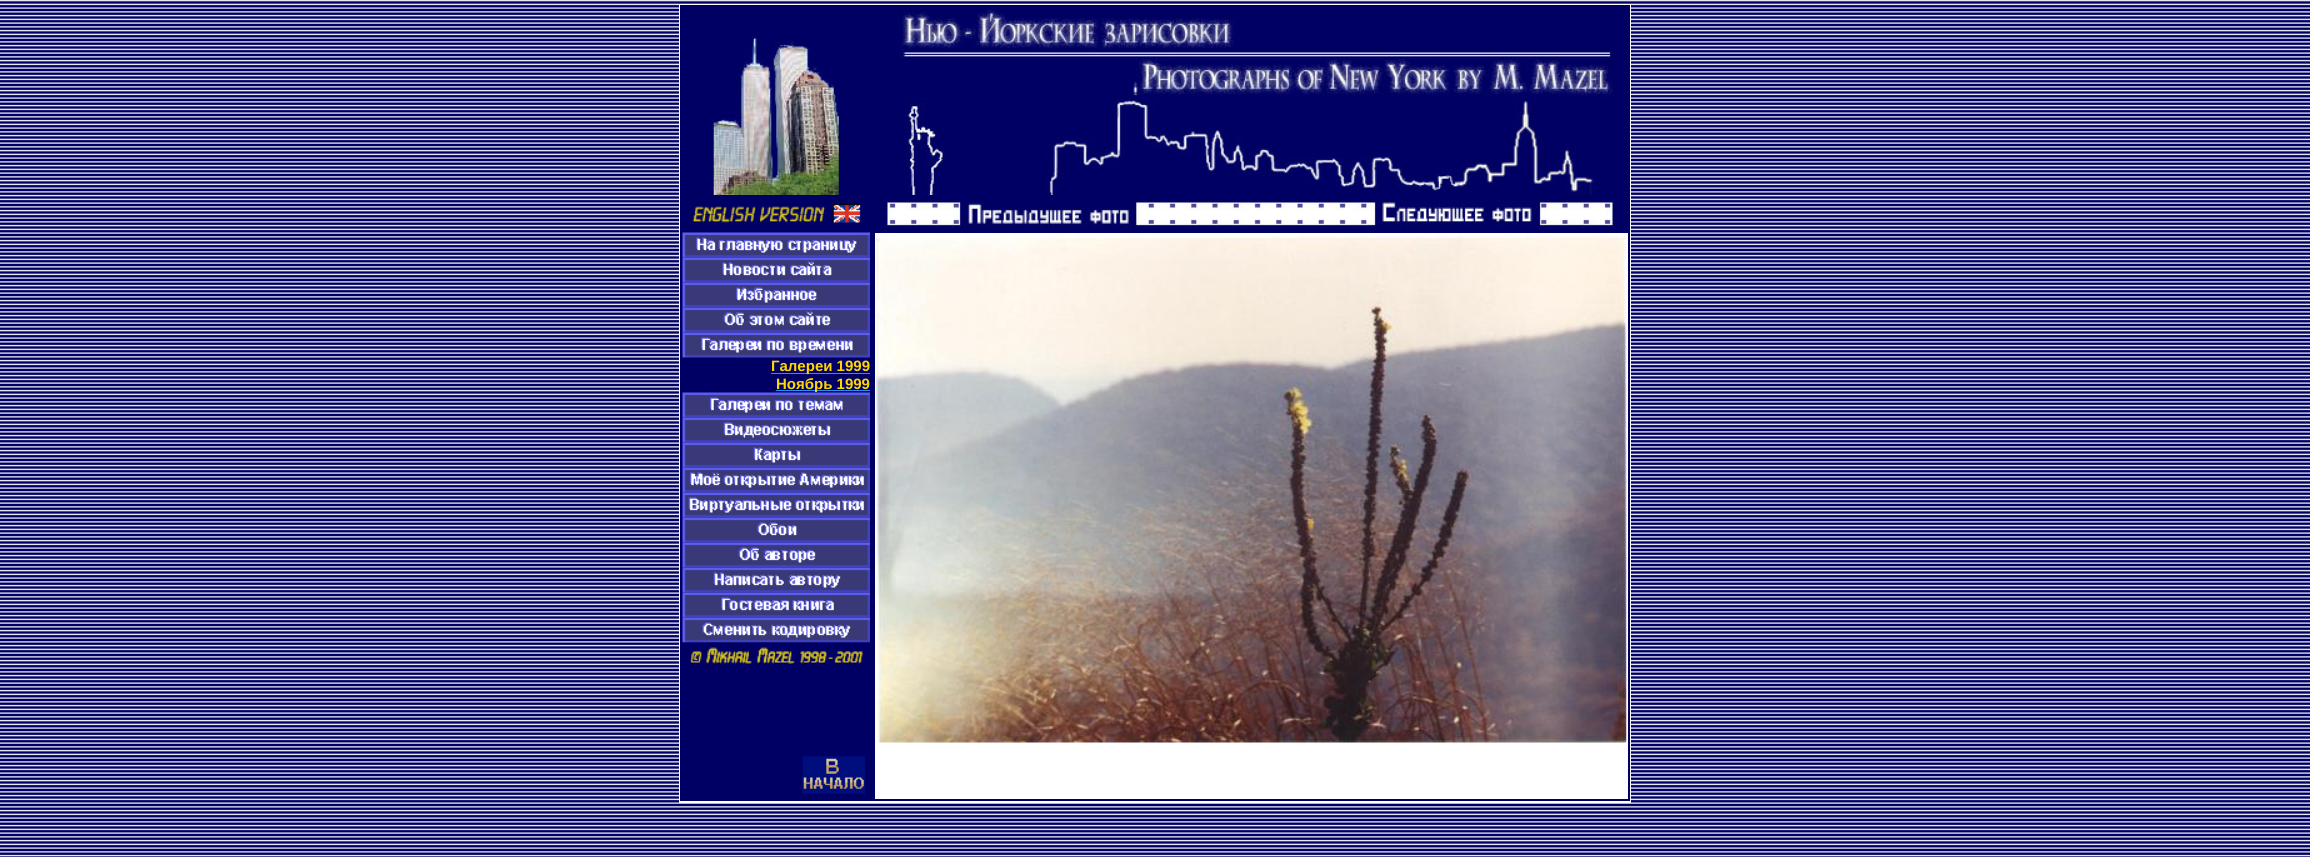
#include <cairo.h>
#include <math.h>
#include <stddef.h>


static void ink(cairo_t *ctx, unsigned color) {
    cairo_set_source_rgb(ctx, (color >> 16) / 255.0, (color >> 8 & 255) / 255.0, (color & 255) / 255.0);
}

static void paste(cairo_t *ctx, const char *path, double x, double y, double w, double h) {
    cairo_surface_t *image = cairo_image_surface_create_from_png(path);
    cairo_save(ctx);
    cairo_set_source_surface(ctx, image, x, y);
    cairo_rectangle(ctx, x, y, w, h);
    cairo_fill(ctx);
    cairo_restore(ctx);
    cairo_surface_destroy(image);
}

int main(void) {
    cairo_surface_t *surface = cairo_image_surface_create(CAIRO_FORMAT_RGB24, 2310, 857);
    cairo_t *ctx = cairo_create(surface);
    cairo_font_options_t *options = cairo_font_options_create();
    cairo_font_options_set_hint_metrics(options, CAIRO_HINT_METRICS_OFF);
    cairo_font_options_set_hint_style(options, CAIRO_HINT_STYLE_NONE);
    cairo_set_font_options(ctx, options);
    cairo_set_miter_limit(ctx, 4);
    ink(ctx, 0xFFFFFF);
    cairo_paint(ctx);
    paste(ctx, "media/1.png", 0, 0, 2310, 857);
    ink(ctx, 0xFFFFFF);
    cairo_rectangle(ctx, 679, 4, 952, 799);
    cairo_fill(ctx);
    ink(ctx, 0x000064);
    cairo_rectangle(ctx, 680, 5, 950, 193);
    cairo_fill(ctx);
    paste(ctx, "media/2.png", 713, 37, 126, 158);
    paste(ctx, "media/3.png", 895, 7, 720, 188);
    cairo_rectangle(ctx, 680, 198, 950, 32);
    cairo_fill(ctx);
    paste(ctx, "media/4.png", 692, 203, 169, 20);
    paste(ctx, "media/5.png", 885, 200, 730, 28);
    cairo_rectangle(ctx, 680, 230, 193, 571);
    cairo_fill(ctx);
    paste(ctx, "media/6.png", 682, 232, 188, 26);
    paste(ctx, "media/7.png", 682, 257, 188, 26);
    paste(ctx, "media/8.png", 682, 282, 188, 26);
    paste(ctx, "media/9.png", 682, 307, 188, 26);
    paste(ctx, "media/10.png", 682, 332, 188, 26);
    ink(ctx, 0x1E90FF);
    cairo_rectangle(ctx, 771, 373, 99, 1);
    cairo_fill(ctx);
    cairo_select_font_face(ctx, "Liberation Sans", CAIRO_FONT_SLANT_NORMAL, CAIRO_FONT_WEIGHT_BOLD);
    cairo_set_font_size(ctx, 15);
    ink(ctx, 0xFFD700);
    cairo_move_to(ctx, 771, 371);
    cairo_show_text(ctx, "Галереи 1999");
    ink(ctx, 0x1E90FF);
    cairo_rectangle(ctx, 776, 390, 94, 1);
    cairo_fill(ctx);
    ink(ctx, 0xFFD700);
    cairo_move_to(ctx, 776, 389);
    cairo_show_text(ctx, "Ноябрь 1999");
    paste(ctx, "media/11.png", 682, 392, 188, 26);
    paste(ctx, "media/12.png", 682, 417, 188, 26);
    paste(ctx, "media/13.png", 682, 442, 188, 26);
    paste(ctx, "media/14.png", 682, 467, 188, 26);
    paste(ctx, "media/15.png", 682, 492, 188, 26);
    paste(ctx, "media/16.png", 682, 517, 188, 26);
    paste(ctx, "media/17.png", 682, 542, 188, 26);
    paste(ctx, "media/18.png", 682, 567, 188, 26);
    paste(ctx, "media/19.png", 682, 592, 188, 26);
    paste(ctx, "media/20.png", 682, 617, 188, 26);
    paste(ctx, "media/21.png", 682, 642, 188, 22);
    ink(ctx, 0x000064);
    cairo_rectangle(ctx, 873, 230, 757, 571);
    cairo_fill(ctx);
    ink(ctx, 0xFFFFFF);
    cairo_rectangle(ctx, 875, 233, 753, 566);
    cairo_fill(ctx);
    paste(ctx, "media/22.png", 876, 234, 751, 509);
    paste(ctx, "media/23.png", 802, 756, 63, 38);
    cairo_surface_write_to_png(surface, "image.png");
    cairo_font_options_destroy(options);
    cairo_destroy(ctx);
    cairo_surface_destroy(surface);
    return 0;
}
